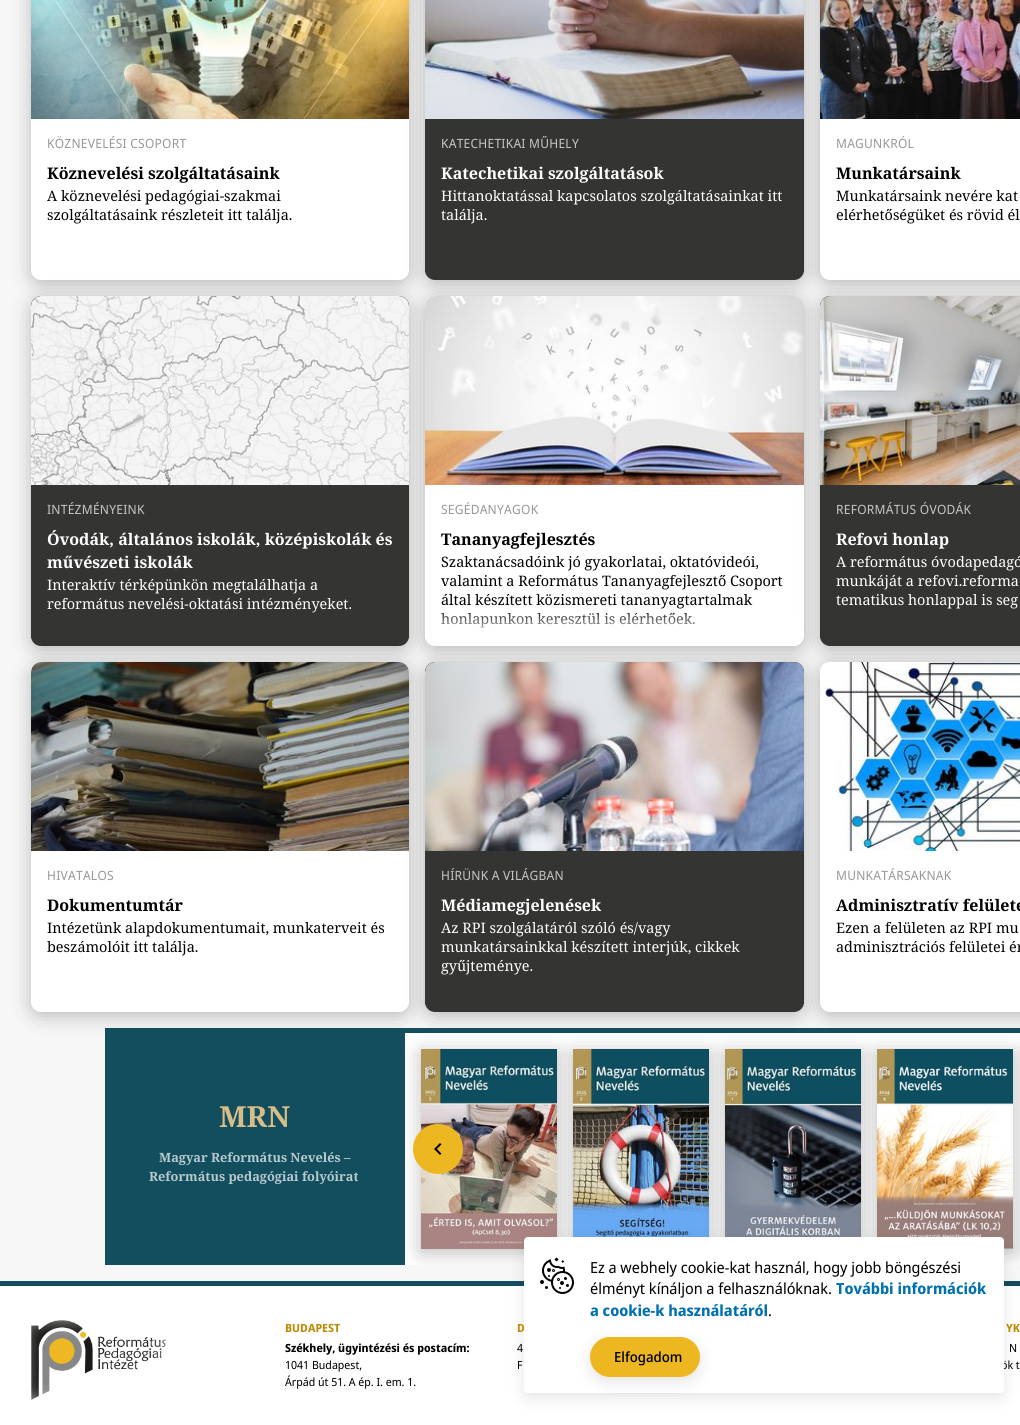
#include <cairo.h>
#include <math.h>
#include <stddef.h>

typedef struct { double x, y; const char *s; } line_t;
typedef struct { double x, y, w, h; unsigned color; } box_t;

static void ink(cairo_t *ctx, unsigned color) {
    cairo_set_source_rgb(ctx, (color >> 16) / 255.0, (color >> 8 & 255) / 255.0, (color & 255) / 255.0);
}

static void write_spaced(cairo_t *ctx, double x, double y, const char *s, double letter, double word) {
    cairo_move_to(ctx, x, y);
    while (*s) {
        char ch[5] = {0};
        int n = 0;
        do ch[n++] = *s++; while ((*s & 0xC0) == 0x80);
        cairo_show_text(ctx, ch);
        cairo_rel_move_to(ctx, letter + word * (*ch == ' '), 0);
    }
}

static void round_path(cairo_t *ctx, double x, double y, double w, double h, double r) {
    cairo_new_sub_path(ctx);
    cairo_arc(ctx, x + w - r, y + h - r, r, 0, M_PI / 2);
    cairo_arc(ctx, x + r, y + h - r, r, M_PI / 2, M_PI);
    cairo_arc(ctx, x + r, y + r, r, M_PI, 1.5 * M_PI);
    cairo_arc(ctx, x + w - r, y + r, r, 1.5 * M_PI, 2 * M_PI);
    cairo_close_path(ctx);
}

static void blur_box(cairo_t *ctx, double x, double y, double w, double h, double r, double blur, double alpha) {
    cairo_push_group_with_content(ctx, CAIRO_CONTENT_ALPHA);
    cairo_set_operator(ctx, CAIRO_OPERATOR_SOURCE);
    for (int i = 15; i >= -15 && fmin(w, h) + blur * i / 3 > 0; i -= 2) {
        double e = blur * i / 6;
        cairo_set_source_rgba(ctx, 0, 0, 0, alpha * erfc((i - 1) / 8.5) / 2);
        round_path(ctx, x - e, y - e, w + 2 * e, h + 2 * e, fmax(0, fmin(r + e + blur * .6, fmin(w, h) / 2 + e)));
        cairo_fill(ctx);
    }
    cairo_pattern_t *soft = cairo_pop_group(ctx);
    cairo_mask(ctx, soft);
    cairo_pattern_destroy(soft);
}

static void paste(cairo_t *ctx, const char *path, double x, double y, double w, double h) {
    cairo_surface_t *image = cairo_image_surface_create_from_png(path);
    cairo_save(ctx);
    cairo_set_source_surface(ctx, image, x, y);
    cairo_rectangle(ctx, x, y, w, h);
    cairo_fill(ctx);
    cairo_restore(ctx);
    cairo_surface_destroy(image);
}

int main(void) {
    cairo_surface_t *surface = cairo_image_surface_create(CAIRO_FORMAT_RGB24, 1020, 1425);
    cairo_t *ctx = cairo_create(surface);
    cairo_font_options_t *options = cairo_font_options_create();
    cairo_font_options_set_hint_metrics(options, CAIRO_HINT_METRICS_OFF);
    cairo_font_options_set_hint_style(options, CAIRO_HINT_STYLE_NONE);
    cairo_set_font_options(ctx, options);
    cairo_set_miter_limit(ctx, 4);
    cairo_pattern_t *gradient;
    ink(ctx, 0xFFFFFF);
    cairo_paint(ctx);
    ink(ctx, 0xF7F7F7);
    cairo_rectangle(ctx, 0, 0, 1020, 1281);
    cairo_fill(ctx);
    ink(ctx, 0x000000);
    blur_box(ctx, 31, -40, 378, 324, 10, 10, 0.25);
    ink(ctx, 0xFFFFFF);
    round_path(ctx, 31, -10, 378, 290, 10);
    cairo_fill(ctx);
    paste(ctx, "media/1.png", 31, 0, 378, 119);
    cairo_select_font_face(ctx, "Noto Sans Display", CAIRO_FONT_SLANT_NORMAL, CAIRO_FONT_WEIGHT_NORMAL);
    cairo_set_font_size(ctx, 12.75);
    ink(ctx, 0x999999);
    write_spaced(ctx, 47, 148, "KÖZNEVELÉSI CSOPORT", 0.25, 0);
    cairo_select_font_face(ctx, "Noto Serif", CAIRO_FONT_SLANT_NORMAL, CAIRO_FONT_WEIGHT_BOLD);
    cairo_set_font_size(ctx, 16);
    ink(ctx, 0x000000);
    cairo_move_to(ctx, 47, 179);
    cairo_show_text(ctx, "Köznevelési szolgáltatásaink");
    cairo_select_font_face(ctx, "Noto Serif", CAIRO_FONT_SLANT_NORMAL, CAIRO_FONT_WEIGHT_NORMAL);
    cairo_set_font_size(ctx, 14.4);
    cairo_move_to(ctx, 47, 201);
    cairo_show_text(ctx, "A köznevelési pedagógiai-szakmai");
    cairo_move_to(ctx, 47, 220);
    cairo_show_text(ctx, "szolgáltatásaink részleteit itt találja.");
    ink(ctx, 0x000000);
    blur_box(ctx, 425, -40, 379, 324, 10, 10, 0.25);
    ink(ctx, 0x343432);
    round_path(ctx, 425, -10, 379, 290, 10);
    cairo_fill(ctx);
    ink(ctx, 0x000000);
    blur_box(ctx, 31, 300, 378, 350, 10, 10, 0.25);
    paste(ctx, "media/2.png", 425, 0, 379, 119);
    blur_box(ctx, 820, -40, 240, 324, 10, 10, 0.25);
    ink(ctx, 0xFFFFFF);
    round_path(ctx, 820, -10, 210, 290, 10);
    cairo_fill(ctx);
    ink(ctx, 0x343432);
    round_path(ctx, 31, 296, 378, 350, 10);
    cairo_fill(ctx);
    paste(ctx, "media/4.png", 31, 296, 378, 189);
    ink(ctx, 0x000000);
    blur_box(ctx, 425, 300, 379, 350, 10, 10, 0.25);
    gradient = cairo_pattern_create_linear(220, 242, 220, 272);
    cairo_pattern_add_color_stop_rgba(gradient, 0, 1, 1, 1, 0);
    cairo_pattern_add_color_stop_rgba(gradient, 1, 1, 1, 1, 1);
    cairo_set_source(ctx, gradient);
    cairo_pattern_destroy(gradient);
    cairo_rectangle(ctx, 31, 270, 378, 2);
    cairo_fill(ctx);
    cairo_select_font_face(ctx, "Noto Sans Display", CAIRO_FONT_SLANT_NORMAL, CAIRO_FONT_WEIGHT_NORMAL);
    cairo_set_font_size(ctx, 12.75);
    ink(ctx, 0xC4C4C4);
    write_spaced(ctx, 441, 148, "KATECHETIKAI MŰHELY", 0.25, 0);
    cairo_select_font_face(ctx, "Noto Serif", CAIRO_FONT_SLANT_NORMAL, CAIRO_FONT_WEIGHT_BOLD);
    cairo_set_font_size(ctx, 16);
    ink(ctx, 0xFFFFFF);
    cairo_move_to(ctx, 441, 179);
    cairo_show_text(ctx, "Katechetikai szolgáltatások");
    cairo_select_font_face(ctx, "Noto Serif", CAIRO_FONT_SLANT_NORMAL, CAIRO_FONT_WEIGHT_NORMAL);
    cairo_set_font_size(ctx, 14.4);
    cairo_move_to(ctx, 441, 201);
    cairo_show_text(ctx, "Hittanoktatással kapcsolatos szolgáltatásainkat itt");
    cairo_move_to(ctx, 441, 220);
    cairo_show_text(ctx, "találja.");
    round_path(ctx, 425, 296, 379, 350, 10);
    cairo_fill(ctx);
    paste(ctx, "media/5.png", 425, 296, 379, 189);
    ink(ctx, 0x000000);
    blur_box(ctx, 820, 300, 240, 350, 10, 10, 0.25);
    gradient = cairo_pattern_create_linear(615, 242, 615, 272);
    cairo_pattern_add_color_stop_rgba(gradient, 0, 0.204, 0.204, 0.196, 0);
    cairo_pattern_add_color_stop_rgba(gradient, 1, 0.204, 0.204, 0.196, 1);
    cairo_set_source(ctx, gradient);
    cairo_pattern_destroy(gradient);
    cairo_rectangle(ctx, 425, 270, 379, 2);
    cairo_fill(ctx);
    paste(ctx, "media/3.png", 820, 0, 200, 119);
    cairo_select_font_face(ctx, "Noto Sans Display", CAIRO_FONT_SLANT_NORMAL, CAIRO_FONT_WEIGHT_NORMAL);
    cairo_set_font_size(ctx, 12.75);
    ink(ctx, 0x999999);
    write_spaced(ctx, 836, 148, "MAGUNKRÓL", 0.25, 0);
    cairo_select_font_face(ctx, "Noto Serif", CAIRO_FONT_SLANT_NORMAL, CAIRO_FONT_WEIGHT_BOLD);
    cairo_set_font_size(ctx, 16);
    ink(ctx, 0x000000);
    cairo_move_to(ctx, 836, 179);
    cairo_show_text(ctx, "Munkatársaink");
    cairo_select_font_face(ctx, "Noto Serif", CAIRO_FONT_SLANT_NORMAL, CAIRO_FONT_WEIGHT_NORMAL);
    cairo_set_font_size(ctx, 14.4);
    cairo_move_to(ctx, 836, 201);
    cairo_show_text(ctx, "Munkatársaink nevére kat");
    cairo_move_to(ctx, 836, 220);
    cairo_show_text(ctx, "elérhetőségüket és rövid él");
    ink(ctx, 0xFFFFFF);
    cairo_rectangle(ctx, 820, 271, 1, 1);
    cairo_fill(ctx);
    cairo_select_font_face(ctx, "Noto Sans Display", CAIRO_FONT_SLANT_NORMAL, CAIRO_FONT_WEIGHT_NORMAL);
    cairo_set_font_size(ctx, 12.75);
    ink(ctx, 0xC4C4C4);
    write_spaced(ctx, 47, 514, "INTÉZMÉNYEINK", 0.25, 0);
    cairo_select_font_face(ctx, "Noto Serif", CAIRO_FONT_SLANT_NORMAL, CAIRO_FONT_WEIGHT_BOLD);
    cairo_set_font_size(ctx, 16);
    ink(ctx, 0xFFFFFF);
    cairo_move_to(ctx, 47, 545);
    cairo_show_text(ctx, "Óvodák, általános iskolák, középiskolák és");
    cairo_move_to(ctx, 47, 568);
    cairo_show_text(ctx, "művészeti iskolák");
    cairo_select_font_face(ctx, "Noto Serif", CAIRO_FONT_SLANT_NORMAL, CAIRO_FONT_WEIGHT_NORMAL);
    cairo_set_font_size(ctx, 14.4);
    cairo_move_to(ctx, 47, 590);
    cairo_show_text(ctx, "Interaktív térképünkön megtalálhatja a");
    cairo_move_to(ctx, 47, 609);
    cairo_show_text(ctx, "református nevelési-oktatási intézményeket.");
    ink(ctx, 0x000000);
    blur_box(ctx, 31, 666, 378, 350, 10, 10, 0.25);
    ink(ctx, 0x343432);
    round_path(ctx, 820, 296, 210, 350, 10);
    cairo_fill(ctx);
    ink(ctx, 0xFFFFFF);
    round_path(ctx, 31, 662, 378, 350, 10);
    cairo_fill(ctx);
    paste(ctx, "media/7.png", 31, 662, 378, 189);
    ink(ctx, 0x000000);
    blur_box(ctx, 425, 666, 379, 350, 10, 10, 0.25);
    gradient = cairo_pattern_create_linear(220, 608, 220, 638);
    cairo_pattern_add_color_stop_rgba(gradient, 0, 0.204, 0.204, 0.196, 0);
    cairo_pattern_add_color_stop_rgba(gradient, 1, 0.204, 0.204, 0.196, 1);
    cairo_set_source(ctx, gradient);
    cairo_pattern_destroy(gradient);
    cairo_rectangle(ctx, 31, 609, 378, 29);
    cairo_fill(ctx);
    cairo_select_font_face(ctx, "Noto Sans Display", CAIRO_FONT_SLANT_NORMAL, CAIRO_FONT_WEIGHT_NORMAL);
    cairo_set_font_size(ctx, 12.75);
    ink(ctx, 0x999999);
    write_spaced(ctx, 441, 514, "SEGÉDANYAGOK", 0.25, 0);
    cairo_select_font_face(ctx, "Noto Serif", CAIRO_FONT_SLANT_NORMAL, CAIRO_FONT_WEIGHT_BOLD);
    cairo_set_font_size(ctx, 16);
    ink(ctx, 0x000000);
    cairo_move_to(ctx, 441, 545);
    cairo_show_text(ctx, "Tananyagfejlesztés");
    cairo_select_font_face(ctx, "Noto Serif", CAIRO_FONT_SLANT_NORMAL, CAIRO_FONT_WEIGHT_NORMAL);
    cairo_set_font_size(ctx, 14.4);
    {
        static const line_t items[] = {
            {441, 567, "Szaktanácsadóink jó gyakorlatai, oktatóvideói,"},
            {441, 586, "valamint a Református Tananyagfejlesztő Csoport"},
            {441, 605, "által készített közismereti tananyagtartalmak"},
            {441, 624, "honlapunkon keresztül is elérhetőek."},
        };
        for (size_t i = 0; i < sizeof items / sizeof *items; i++) {
            cairo_move_to(ctx, items[i].x, items[i].y);
            cairo_show_text(ctx, items[i].s);
        }
    }
    ink(ctx, 0x343432);
    round_path(ctx, 425, 662, 379, 350, 10);
    cairo_fill(ctx);
    paste(ctx, "media/8.png", 425, 662, 379, 189);
    ink(ctx, 0x000000);
    blur_box(ctx, 820, 666, 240, 350, 10, 10, 0.25);
    gradient = cairo_pattern_create_linear(615, 608, 615, 638);
    cairo_pattern_add_color_stop_rgba(gradient, 0, 1, 1, 1, 0);
    cairo_pattern_add_color_stop_rgba(gradient, 1, 1, 1, 1, 1);
    cairo_set_source(ctx, gradient);
    cairo_pattern_destroy(gradient);
    cairo_rectangle(ctx, 425, 613, 379, 25);
    cairo_fill(ctx);
    paste(ctx, "media/6.png", 820, 296, 200, 189);
    cairo_select_font_face(ctx, "Noto Sans Display", CAIRO_FONT_SLANT_NORMAL, CAIRO_FONT_WEIGHT_NORMAL);
    cairo_set_font_size(ctx, 12.75);
    ink(ctx, 0xC4C4C4);
    write_spaced(ctx, 836, 514, "REFORMÁTUS ÓVODÁK", 0.25, 0);
    cairo_select_font_face(ctx, "Noto Serif", CAIRO_FONT_SLANT_NORMAL, CAIRO_FONT_WEIGHT_BOLD);
    cairo_set_font_size(ctx, 16);
    ink(ctx, 0xFFFFFF);
    cairo_move_to(ctx, 836, 545);
    cairo_show_text(ctx, "Refovi honlap");
    cairo_select_font_face(ctx, "Noto Serif", CAIRO_FONT_SLANT_NORMAL, CAIRO_FONT_WEIGHT_NORMAL);
    cairo_set_font_size(ctx, 14.4);
    {
        static const line_t items[] = {
            {836, 567, "A református óvodapedagó"},
            {836, 586, "munkáját a refovi.reforma"},
            {836, 605, "tematikus honlappal is seg"},
        };
        for (size_t i = 0; i < sizeof items / sizeof *items; i++) {
            cairo_move_to(ctx, items[i].x, items[i].y);
            cairo_show_text(ctx, items[i].s);
        }
    }
    gradient = cairo_pattern_create_linear(1010, 608, 1010, 638);
    cairo_pattern_add_color_stop_rgba(gradient, 0, 0.204, 0.204, 0.196, 0);
    cairo_pattern_add_color_stop_rgba(gradient, 1, 0.204, 0.204, 0.196, 1);
    cairo_set_source(ctx, gradient);
    cairo_pattern_destroy(gradient);
    cairo_rectangle(ctx, 820, 636, 1, 2);
    cairo_fill(ctx);
    cairo_select_font_face(ctx, "Noto Sans Display", CAIRO_FONT_SLANT_NORMAL, CAIRO_FONT_WEIGHT_NORMAL);
    cairo_set_font_size(ctx, 12.75);
    ink(ctx, 0x999999);
    write_spaced(ctx, 47, 880, "HIVATALOS", 0.25, 0);
    cairo_select_font_face(ctx, "Noto Serif", CAIRO_FONT_SLANT_NORMAL, CAIRO_FONT_WEIGHT_BOLD);
    cairo_set_font_size(ctx, 16);
    ink(ctx, 0x000000);
    cairo_move_to(ctx, 47, 911);
    cairo_show_text(ctx, "Dokumentumtár");
    cairo_select_font_face(ctx, "Noto Serif", CAIRO_FONT_SLANT_NORMAL, CAIRO_FONT_WEIGHT_NORMAL);
    cairo_set_font_size(ctx, 14.4);
    cairo_move_to(ctx, 47, 933);
    cairo_show_text(ctx, "Intézetünk alapdokumentumait, munkaterveit és");
    cairo_move_to(ctx, 47, 952);
    cairo_show_text(ctx, "beszámolóit itt találja.");
    gradient = cairo_pattern_create_linear(220, 974, 220, 1004);
    cairo_pattern_add_color_stop_rgba(gradient, 0, 1, 1, 1, 0);
    cairo_pattern_add_color_stop_rgba(gradient, 1, 1, 1, 1, 1);
    cairo_set_source(ctx, gradient);
    cairo_pattern_destroy(gradient);
    cairo_rectangle(ctx, 31, 1002, 378, 2);
    cairo_fill(ctx);
    cairo_select_font_face(ctx, "Noto Sans Display", CAIRO_FONT_SLANT_NORMAL, CAIRO_FONT_WEIGHT_NORMAL);
    cairo_set_font_size(ctx, 12.75);
    ink(ctx, 0xC4C4C4);
    write_spaced(ctx, 441, 880, "HÍRÜNK A VILÁGBAN", 0.25, 0);
    cairo_select_font_face(ctx, "Noto Serif", CAIRO_FONT_SLANT_NORMAL, CAIRO_FONT_WEIGHT_BOLD);
    cairo_set_font_size(ctx, 16);
    ink(ctx, 0xFFFFFF);
    cairo_move_to(ctx, 441, 911);
    cairo_show_text(ctx, "Médiamegjelenések");
    cairo_select_font_face(ctx, "Noto Serif", CAIRO_FONT_SLANT_NORMAL, CAIRO_FONT_WEIGHT_NORMAL);
    cairo_set_font_size(ctx, 14.4);
    {
        static const line_t items[] = {
            {441, 933, "Az RPI szolgálatáról szóló és/vagy"},
            {441, 952, "munkatársainkkal készített interjúk, cikkek"},
            {441, 971, "gyűjteménye."},
        };
        for (size_t i = 0; i < sizeof items / sizeof *items; i++) {
            cairo_move_to(ctx, items[i].x, items[i].y);
            cairo_show_text(ctx, items[i].s);
        }
    }
    gradient = cairo_pattern_create_linear(615, 974, 615, 1004);
    cairo_pattern_add_color_stop_rgba(gradient, 0, 0.204, 0.204, 0.196, 0);
    cairo_pattern_add_color_stop_rgba(gradient, 1, 0.204, 0.204, 0.196, 1);
    cairo_set_source(ctx, gradient);
    cairo_pattern_destroy(gradient);
    cairo_rectangle(ctx, 425, 1002, 379, 2);
    cairo_fill(ctx);
    ink(ctx, 0xFFFFFF);
    round_path(ctx, 820, 662, 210, 350, 10);
    cairo_fill(ctx);
    paste(ctx, "media/9.png", 820, 662, 200, 189);
    cairo_select_font_face(ctx, "Noto Sans Display", CAIRO_FONT_SLANT_NORMAL, CAIRO_FONT_WEIGHT_NORMAL);
    cairo_set_font_size(ctx, 12.75);
    ink(ctx, 0x999999);
    write_spaced(ctx, 836, 880, "MUNKATÁRSAKNAK", 0.25, 0);
    cairo_select_font_face(ctx, "Noto Serif", CAIRO_FONT_SLANT_NORMAL, CAIRO_FONT_WEIGHT_BOLD);
    cairo_set_font_size(ctx, 16);
    ink(ctx, 0x000000);
    cairo_move_to(ctx, 836, 911);
    cairo_show_text(ctx, "Adminisztratív felülete");
    cairo_select_font_face(ctx, "Noto Serif", CAIRO_FONT_SLANT_NORMAL, CAIRO_FONT_WEIGHT_NORMAL);
    cairo_set_font_size(ctx, 14.4);
    cairo_move_to(ctx, 836, 933);
    cairo_show_text(ctx, "Ezen a felületen az RPI mu");
    cairo_move_to(ctx, 836, 952);
    cairo_show_text(ctx, "adminisztrációs felületei ér");
    {
        static const box_t items[] = {
            {820, 1003, 1, 1, 0xFFFFFF},
            {105, 1028, 915, 5, 0x124E5E},
            {105, 1033, 300, 232, 0x124E5E},
        };
        for (size_t i = 0; i < sizeof items / sizeof *items; i++) {
            ink(ctx, items[i].color);
            cairo_rectangle(ctx, items[i].x, items[i].y, items[i].w, items[i].h);
            cairo_fill(ctx);
        }
    }
    cairo_select_font_face(ctx, "Noto Serif", CAIRO_FONT_SLANT_NORMAL, CAIRO_FONT_WEIGHT_BOLD);
    cairo_set_font_size(ctx, 29);
    ink(ctx, 0xD7BE89);
    cairo_move_to(ctx, 219, 1127);
    cairo_show_text(ctx, "MRN");
    cairo_set_font_size(ctx, 12.75);
    ink(ctx, 0xB8CACF);
    cairo_move_to(ctx, 159, 1162);
    cairo_show_text(ctx, "Magyar Református Nevelés –");
    cairo_move_to(ctx, 149, 1181);
    cairo_show_text(ctx, "Református pedagógiai folyóirat");
    ink(ctx, 0xFFFFFF);
    cairo_rectangle(ctx, 405, 1033, 615, 232);
    cairo_fill(ctx);
    ink(ctx, 0x124E5E);
    cairo_rectangle(ctx, 0, 1281, 1020, 5);
    cairo_fill(ctx);
    cairo_save(ctx);
    cairo_rectangle(ctx, 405, 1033, 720, 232);
    cairo_clip(ctx);
    ink(ctx, 0x000000);
    blur_box(ctx, 421, 1053, 136, 200, 0, 10, 0.25);
    cairo_restore(ctx);
    paste(ctx, "media/10.png", 421, 1049, 136, 200);
    ink(ctx, 0x000000);
    blur_box(ctx, 573, 1053, 136, 200, 0, 10, 0.25);
    paste(ctx, "media/11.png", 573, 1049, 136, 188);
    blur_box(ctx, 725, 1053, 136, 200, 0, 10, 0.25);
    paste(ctx, "media/12.png", 725, 1049, 136, 188);
    cairo_save(ctx);
    cairo_rectangle(ctx, 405, 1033, 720, 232);
    cairo_clip(ctx);
    blur_box(ctx, 877, 1053, 136, 200, 0, 10, 0.25);
    cairo_restore(ctx);
    paste(ctx, "media/13.png", 877, 1049, 136, 200);
    blur_box(ctx, 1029, 1053, 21, 200, 0, 10, 0.25);
    ink(ctx, 0xEDB721);
    cairo_arc(ctx, 438, 1149, 25, 0, 2 * M_PI);
    cairo_fill(ctx);
    paste(ctx, "media/14.png", 434, 1143, 8, 12);
    ink(ctx, 0x000000);
    blur_box(ctx, 524, 1242, 480, 156, 4, 7.5, 0.1);
    cairo_select_font_face(ctx, "Noto Sans Display", CAIRO_FONT_SLANT_NORMAL, CAIRO_FONT_WEIGHT_BOLD);
    cairo_set_font_size(ctx, 11.25);
    ink(ctx, 0xBC8B06);
    cairo_move_to(ctx, 517, 1332);
    cairo_show_text(ctx, "D");
    cairo_select_font_face(ctx, "Noto Sans Display", CAIRO_FONT_SLANT_NORMAL, CAIRO_FONT_WEIGHT_NORMAL);
    ink(ctx, 0x000000);
    cairo_move_to(ctx, 1001, 1369);
    cairo_show_text(ctx, "ök t");
    ink(ctx, 0xFFFFFF);
    round_path(ctx, 524, 1237, 480, 156, 4);
    cairo_fill(ctx);
    paste(ctx, "media/15.png", 540, 1257, 34, 37);
    cairo_set_font_size(ctx, 15.3);
    ink(ctx, 0x000000);
    cairo_move_to(ctx, 590, 1273);
    cairo_show_text(ctx, "Ez a webhely cookie-kat használ, hogy jobb böngészési");
    cairo_move_to(ctx, 590, 1294);
    cairo_show_text(ctx, "élményt kínáljon a felhasználóknak.");
    cairo_select_font_face(ctx, "Noto Sans Display", CAIRO_FONT_SLANT_NORMAL, CAIRO_FONT_WEIGHT_BOLD);
    ink(ctx, 0x0071B0);
    cairo_move_to(ctx, 836, 1294);
    cairo_show_text(ctx, "További információk");
    cairo_move_to(ctx, 590, 1316);
    cairo_show_text(ctx, "a cookie-k használatáról");
    cairo_select_font_face(ctx, "Noto Sans Display", CAIRO_FONT_SLANT_NORMAL, CAIRO_FONT_WEIGHT_NORMAL);
    ink(ctx, 0x000000);
    cairo_move_to(ctx, 768, 1316);
    cairo_show_text(ctx, ".");
    ink(ctx, 0x000000);
    blur_box(ctx, 590, 1342, 110, 40, 20, 7.5, 0.1);
    ink(ctx, 0xEDB721);
    round_path(ctx, 590, 1337, 110, 40, 20);
    cairo_fill(ctx);
    cairo_select_font_face(ctx, "Noto Sans Display Medium", CAIRO_FONT_SLANT_NORMAL, CAIRO_FONT_WEIGHT_NORMAL);
    cairo_set_font_size(ctx, 14);
    ink(ctx, 0x000000);
    cairo_move_to(ctx, 614, 1362);
    cairo_show_text(ctx, "Elfogadom");
    paste(ctx, "media/16.png", 31, 1320, 135, 80);
    cairo_select_font_face(ctx, "Noto Sans Display", CAIRO_FONT_SLANT_NORMAL, CAIRO_FONT_WEIGHT_BOLD);
    cairo_set_font_size(ctx, 11.25);
    ink(ctx, 0xBC8B06);
    cairo_move_to(ctx, 285, 1332);
    cairo_show_text(ctx, "BUDAPEST");
    ink(ctx, 0x000000);
    cairo_move_to(ctx, 285, 1352);
    cairo_show_text(ctx, "Székhely, ügyintézési és postacím:");
    cairo_select_font_face(ctx, "Noto Sans Display", CAIRO_FONT_SLANT_NORMAL, CAIRO_FONT_WEIGHT_NORMAL);
    {
        static const line_t items[] = {
            {285, 1369, "1041 Budapest,"},
            {285, 1386, "Árpád út 51. A ép. I. em. 1."},
            {517, 1352, "4"},
            {517, 1369, "F"},
        };
        for (size_t i = 0; i < sizeof items / sizeof *items; i++) {
            cairo_move_to(ctx, items[i].x, items[i].y);
            cairo_show_text(ctx, items[i].s);
        }
    }
    cairo_select_font_face(ctx, "Noto Sans Display", CAIRO_FONT_SLANT_NORMAL, CAIRO_FONT_WEIGHT_BOLD);
    ink(ctx, 0xBC8B06);
    cairo_move_to(ctx, 1006, 1332);
    cairo_show_text(ctx, "YK");
    cairo_select_font_face(ctx, "Noto Sans Display", CAIRO_FONT_SLANT_NORMAL, CAIRO_FONT_WEIGHT_NORMAL);
    ink(ctx, 0x000000);
    cairo_move_to(ctx, 1009, 1352);
    cairo_show_text(ctx, "N");
    cairo_surface_write_to_png(surface, "image.png");
    cairo_font_options_destroy(options);
    cairo_destroy(ctx);
    cairo_surface_destroy(surface);
    return 0;
}
